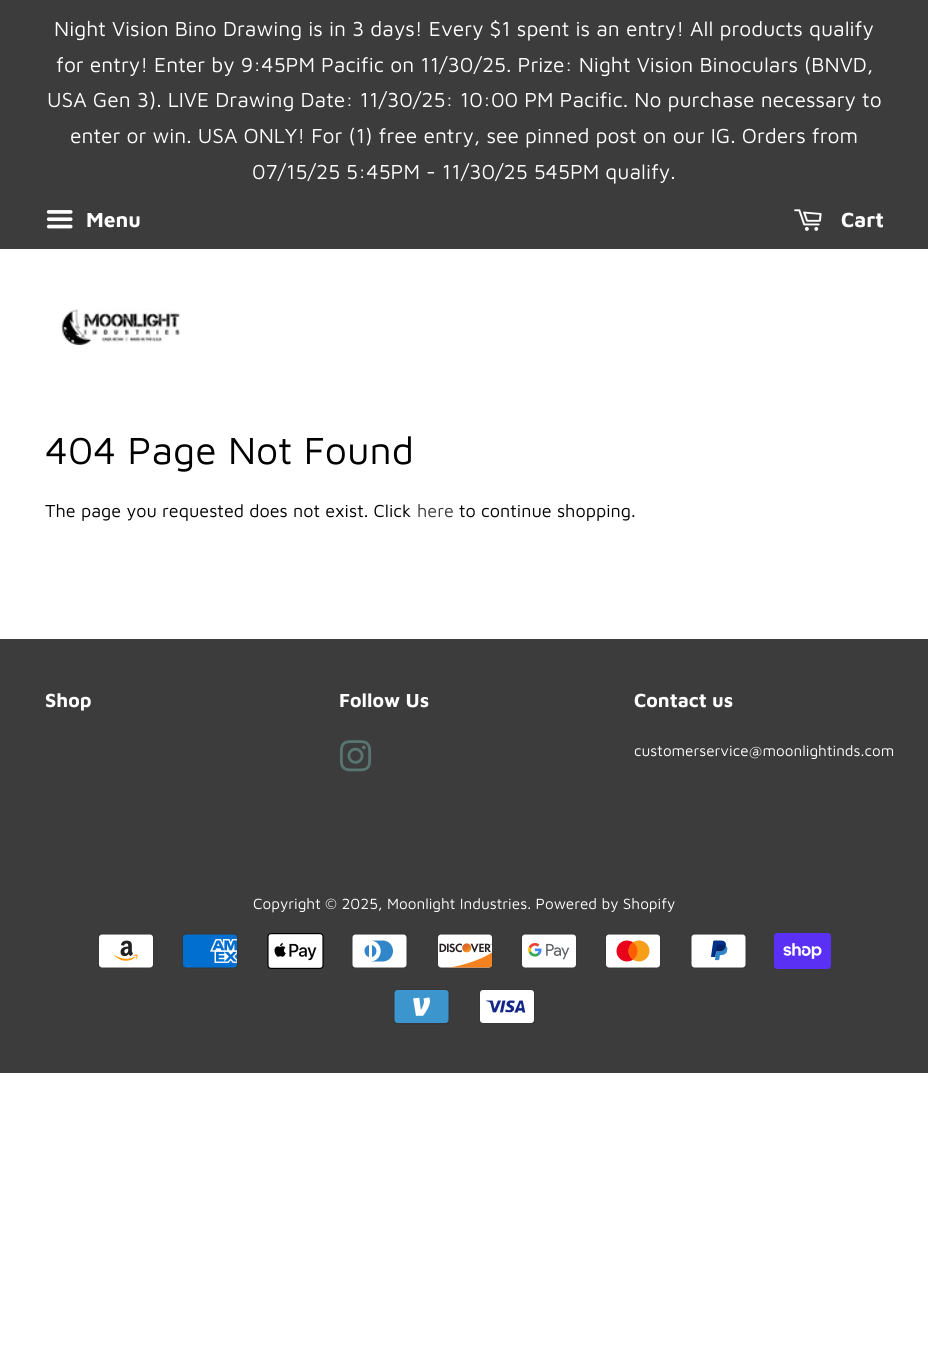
#include <cairo.h>
#include <math.h>
#include <stddef.h>

typedef struct { double x, y; const char *s; } line_t;

static void ink(cairo_t *ctx, unsigned color) {
    cairo_set_source_rgb(ctx, (color >> 16) / 255.0, (color >> 8 & 255) / 255.0, (color & 255) / 255.0);
}

static void paste(cairo_t *ctx, const char *path, double x, double y, double w, double h) {
    cairo_surface_t *image = cairo_image_surface_create_from_png(path);
    cairo_save(ctx);
    cairo_set_source_surface(ctx, image, x, y);
    cairo_rectangle(ctx, x, y, w, h);
    cairo_fill(ctx);
    cairo_restore(ctx);
    cairo_surface_destroy(image);
}

int main(void) {
    cairo_surface_t *surface = cairo_image_surface_create(CAIRO_FORMAT_RGB24, 928, 1354);
    cairo_t *ctx = cairo_create(surface);
    cairo_font_options_t *options = cairo_font_options_create();
    cairo_font_options_set_hint_metrics(options, CAIRO_HINT_METRICS_OFF);
    cairo_font_options_set_hint_style(options, CAIRO_HINT_STYLE_NONE);
    cairo_set_font_options(ctx, options);
    cairo_set_miter_limit(ctx, 4);
    ink(ctx, 0xFFFFFF);
    cairo_paint(ctx);
    ink(ctx, 0x3C3C3C);
    cairo_rectangle(ctx, 0, 0, 928, 249);
    cairo_fill(ctx);
    cairo_select_font_face(ctx, "Maven Pro", CAIRO_FONT_SLANT_NORMAL, CAIRO_FONT_WEIGHT_NORMAL);
    cairo_set_font_size(ctx, 21);
    ink(ctx, 0xFFFFFF);
    {
        static const line_t items[] = {
            {54, 36, "Night Vision Bino Drawing is in 3 days! Every $1 spent is an entry! All products qualify"},
            {56, 72, "for entry! Enter by 9:45PM Pacific on 11/30/25. Prize: Night Vision Binoculars (BNVD,"},
            {47, 107, "USA Gen 3). LIVE Drawing Date: 11/30/25: 10:00 PM Pacific. No purchase necessary to"},
            {70, 143, "enter or win. USA ONLY! For (1) free entry, see pinned post on our IG. Orders from"},
            {252, 179, "07/15/25 5:45PM - 11/30/25 545PM qualify."},
        };
        for (size_t i = 0; i < sizeof items / sizeof *items; i++) {
            cairo_move_to(ctx, items[i].x, items[i].y);
            cairo_show_text(ctx, items[i].s);
        }
    }
    paste(ctx, "media/1.png", 46, 210, 27, 19);
    cairo_select_font_face(ctx, "Maven Pro", CAIRO_FONT_SLANT_NORMAL, CAIRO_FONT_WEIGHT_BOLD);
    cairo_move_to(ctx, 86, 227);
    cairo_show_text(ctx, "Menu");
    paste(ctx, "media/2.png", 794, 209, 28, 22);
    cairo_move_to(ctx, 841, 227);
    cairo_show_text(ctx, "Cart");
    paste(ctx, "media/3.png", 61, 309, 120, 36);
    cairo_select_font_face(ctx, "Maven Pro", CAIRO_FONT_SLANT_NORMAL, CAIRO_FONT_WEIGHT_NORMAL);
    cairo_set_font_size(ctx, 39);
    ink(ctx, 0x000000);
    cairo_move_to(ctx, 45, 464);
    cairo_show_text(ctx, "404 Page Not Found");
    cairo_set_font_size(ctx, 18);
    cairo_move_to(ctx, 45, 517);
    cairo_show_text(ctx, "The page you requested does not exist. Click");
    ink(ctx, 0x3C3C3C);
    cairo_move_to(ctx, 417, 517);
    cairo_show_text(ctx, "here");
    ink(ctx, 0x000000);
    cairo_move_to(ctx, 459, 517);
    cairo_show_text(ctx, "to continue shopping.");
    ink(ctx, 0x3C3C3C);
    cairo_rectangle(ctx, 0, 639, 928, 434);
    cairo_fill(ctx);
    cairo_select_font_face(ctx, "Maven Pro", CAIRO_FONT_SLANT_NORMAL, CAIRO_FONT_WEIGHT_BOLD);
    cairo_set_font_size(ctx, 19.5);
    ink(ctx, 0xFFFFFF);
    cairo_move_to(ctx, 45, 707);
    cairo_show_text(ctx, "Shop");
    cairo_move_to(ctx, 339, 707);
    cairo_show_text(ctx, "Follow Us");
    paste(ctx, "media/4.png", 340, 740, 32, 32);
    cairo_move_to(ctx, 634, 707);
    cairo_show_text(ctx, "Contact us");
    cairo_select_font_face(ctx, "Maven Pro", CAIRO_FONT_SLANT_NORMAL, CAIRO_FONT_WEIGHT_NORMAL);
    cairo_set_font_size(ctx, 15.3);
    cairo_move_to(ctx, 634, 756);
    cairo_show_text(ctx, "customerservice@moonlightinds.com");
    cairo_move_to(ctx, 253, 909);
    cairo_show_text(ctx, "Copyright © 2025, Moonlight Industries. Powered by Shopify");
    paste(ctx, "media/5.png", 98, 933, 56, 36);
    paste(ctx, "media/6.png", 182, 933, 56, 36);
    paste(ctx, "media/7.png", 267, 933, 57, 36);
    paste(ctx, "media/8.png", 351, 933, 57, 36);
    paste(ctx, "media/9.png", 437, 933, 56, 36);
    paste(ctx, "media/10.png", 521, 933, 56, 36);
    paste(ctx, "media/11.png", 605, 933, 56, 36);
    paste(ctx, "media/12.png", 690, 933, 57, 36);
    paste(ctx, "media/13.png", 774, 933, 57, 36);
    paste(ctx, "media/14.png", 393, 989, 57, 36);
    paste(ctx, "media/15.png", 479, 989, 56, 35);
    cairo_surface_write_to_png(surface, "image.png");
    cairo_font_options_destroy(options);
    cairo_destroy(ctx);
    cairo_surface_destroy(surface);
    return 0;
}
